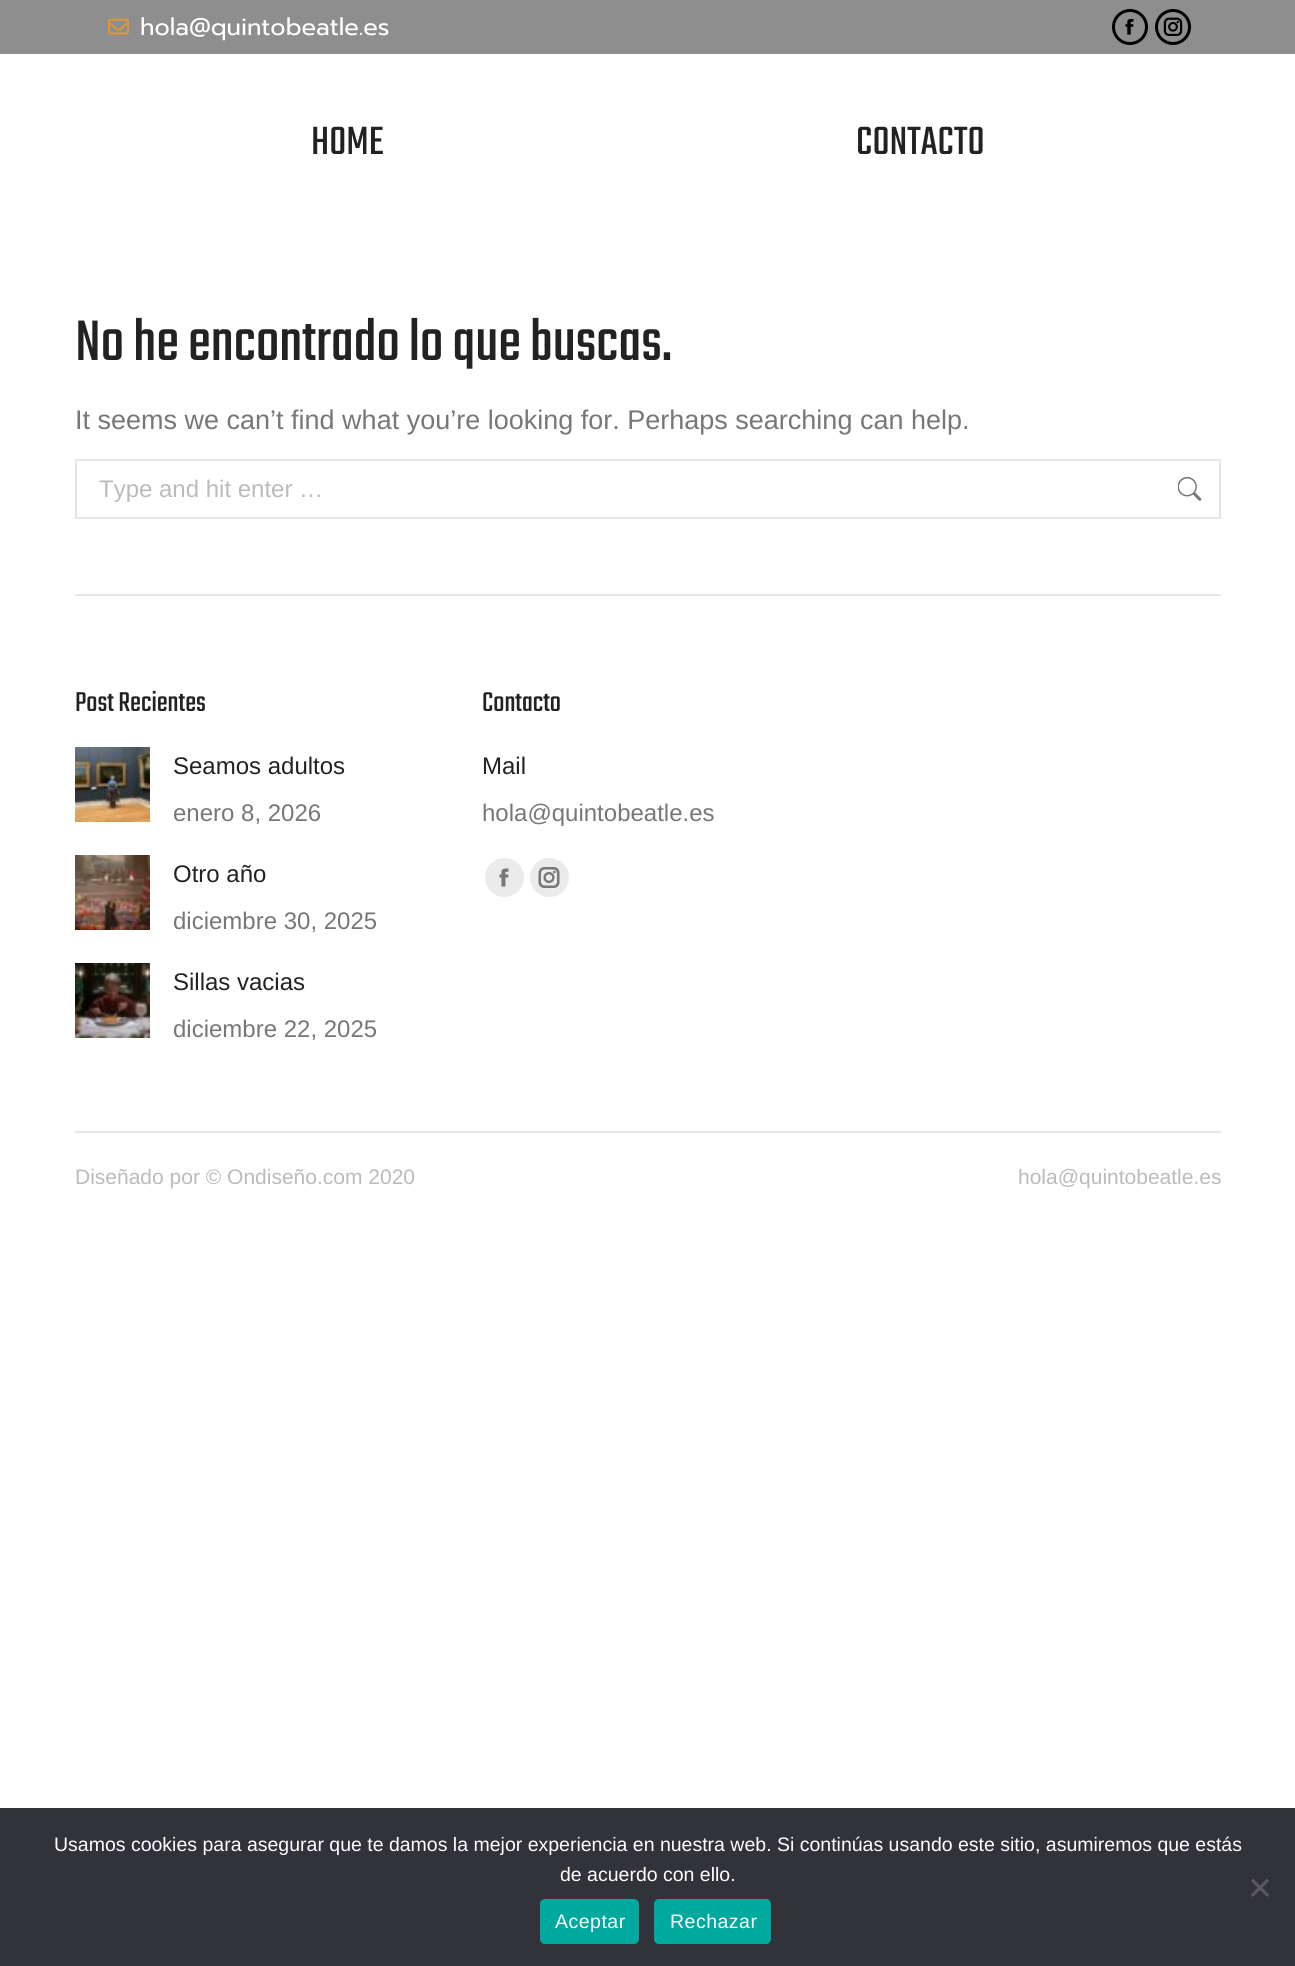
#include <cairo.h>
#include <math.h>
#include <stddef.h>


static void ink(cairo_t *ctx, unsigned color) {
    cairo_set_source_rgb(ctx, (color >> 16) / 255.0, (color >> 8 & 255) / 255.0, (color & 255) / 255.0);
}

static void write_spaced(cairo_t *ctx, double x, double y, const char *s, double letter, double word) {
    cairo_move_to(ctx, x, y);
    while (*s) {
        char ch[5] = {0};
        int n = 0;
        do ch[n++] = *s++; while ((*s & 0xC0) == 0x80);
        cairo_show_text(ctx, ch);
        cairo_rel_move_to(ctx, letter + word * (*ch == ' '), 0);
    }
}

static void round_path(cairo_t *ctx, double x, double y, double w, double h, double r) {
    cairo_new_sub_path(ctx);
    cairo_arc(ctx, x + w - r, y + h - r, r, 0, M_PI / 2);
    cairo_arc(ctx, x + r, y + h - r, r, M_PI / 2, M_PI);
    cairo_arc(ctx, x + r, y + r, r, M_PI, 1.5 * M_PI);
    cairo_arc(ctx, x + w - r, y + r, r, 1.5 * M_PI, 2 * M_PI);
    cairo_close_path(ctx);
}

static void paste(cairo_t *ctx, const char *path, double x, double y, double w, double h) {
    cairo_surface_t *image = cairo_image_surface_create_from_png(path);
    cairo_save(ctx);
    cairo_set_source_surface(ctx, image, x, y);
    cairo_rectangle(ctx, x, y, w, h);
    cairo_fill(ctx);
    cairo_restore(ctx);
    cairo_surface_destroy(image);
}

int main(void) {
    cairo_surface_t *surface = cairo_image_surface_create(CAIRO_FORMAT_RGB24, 1295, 1966);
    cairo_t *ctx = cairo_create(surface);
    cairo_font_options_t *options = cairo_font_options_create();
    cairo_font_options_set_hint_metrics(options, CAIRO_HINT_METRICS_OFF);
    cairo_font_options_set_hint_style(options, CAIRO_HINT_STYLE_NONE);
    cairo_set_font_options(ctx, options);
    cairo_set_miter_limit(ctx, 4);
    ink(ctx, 0xFFFFFF);
    cairo_paint(ctx);
    ink(ctx, 0x8E8E8E);
    cairo_rectangle(ctx, 0, 0, 1295, 54);
    cairo_fill(ctx);
    paste(ctx, "media/1.png", 108, 18, 21, 17);
    cairo_select_font_face(ctx, "Prompt", CAIRO_FONT_SLANT_NORMAL, CAIRO_FONT_WEIGHT_NORMAL);
    cairo_set_font_size(ctx, 24);
    ink(ctx, 0xFFFFFF);
    cairo_move_to(ctx, 140, 35);
    cairo_show_text(ctx, "hola@quintobeatle.es");
    cairo_new_path(ctx);
    cairo_arc(ctx, 1130, 27, 16.5, 0, 2 * M_PI);
    ink(ctx, 0x000000);
    cairo_set_line_width(ctx, 3);
    cairo_stroke(ctx);
    paste(ctx, "media/2.png", 1125, 18, 9, 17);
    cairo_arc(ctx, 1173, 27, 16.5, 0, 2 * M_PI);
    cairo_stroke(ctx);
    paste(ctx, "media/3.png", 1163, 17, 20, 19);
    cairo_select_font_face(ctx, "Teko", CAIRO_FONT_SLANT_NORMAL, CAIRO_FONT_WEIGHT_NORMAL);
    cairo_set_font_size(ctx, 43.5);
    ink(ctx, 0x222222);
    cairo_move_to(ctx, 311, 154);
    cairo_show_text(ctx, "HOME");
    cairo_move_to(ctx, 856, 154);
    cairo_show_text(ctx, "CONTACTO");
    cairo_set_font_size(ctx, 63);
    cairo_move_to(ctx, 75, 360);
    cairo_show_text(ctx, "No he encontrado lo que buscas.");
    cairo_select_font_face(ctx, "Liberation Sans", CAIRO_FONT_SLANT_NORMAL, CAIRO_FONT_WEIGHT_NORMAL);
    cairo_set_font_size(ctx, 27);
    ink(ctx, 0x777777);
    cairo_move_to(ctx, 75, 429);
    cairo_show_text(ctx, "It seems we can’t find what you’re looking for. Perhaps searching can help.");
    cairo_rectangle(ctx, 76, 460, 1144, 58);
    ink(ctx, 0xE6E6E6);
    cairo_set_line_width(ctx, 2);
    cairo_stroke(ctx);
    cairo_set_font_size(ctx, 24);
    ink(ctx, 0xBBBBBB);
    cairo_move_to(ctx, 99, 497);
    cairo_show_text(ctx, "Type and hit enter …");
    paste(ctx, "media/4.png", 1178, 477, 24, 24);
    ink(ctx, 0xE6E6E6);
    cairo_rectangle(ctx, 75, 594, 1146, 2);
    cairo_fill(ctx);
    cairo_select_font_face(ctx, "Teko", CAIRO_FONT_SLANT_NORMAL, CAIRO_FONT_WEIGHT_NORMAL);
    cairo_set_font_size(ctx, 30);
    ink(ctx, 0x222222);
    cairo_move_to(ctx, 75, 711);
    cairo_show_text(ctx, "Post Recientes");
    paste(ctx, "media/5.png", 75, 747, 75, 75);
    cairo_select_font_face(ctx, "Liberation Sans", CAIRO_FONT_SLANT_NORMAL, CAIRO_FONT_WEIGHT_NORMAL);
    cairo_set_font_size(ctx, 24);
    cairo_move_to(ctx, 173, 774);
    cairo_show_text(ctx, "Seamos adultos");
    ink(ctx, 0x777777);
    cairo_move_to(ctx, 173, 821);
    cairo_show_text(ctx, "enero 8, 2026");
    paste(ctx, "media/6.png", 75, 855, 75, 75);
    ink(ctx, 0x222222);
    cairo_move_to(ctx, 173, 882);
    cairo_show_text(ctx, "Otro año");
    ink(ctx, 0x777777);
    cairo_move_to(ctx, 173, 929);
    cairo_show_text(ctx, "diciembre 30, 2025");
    paste(ctx, "media/7.png", 75, 963, 75, 75);
    ink(ctx, 0x222222);
    cairo_move_to(ctx, 173, 990);
    cairo_show_text(ctx, "Sillas vacias");
    ink(ctx, 0x777777);
    cairo_move_to(ctx, 173, 1037);
    cairo_show_text(ctx, "diciembre 22, 2025");
    cairo_select_font_face(ctx, "Teko", CAIRO_FONT_SLANT_NORMAL, CAIRO_FONT_WEIGHT_NORMAL);
    cairo_set_font_size(ctx, 30);
    ink(ctx, 0x222222);
    cairo_move_to(ctx, 482, 711);
    cairo_show_text(ctx, "Contacto");
    cairo_select_font_face(ctx, "Liberation Sans", CAIRO_FONT_SLANT_NORMAL, CAIRO_FONT_WEIGHT_NORMAL);
    cairo_set_font_size(ctx, 24);
    cairo_move_to(ctx, 482, 774);
    cairo_show_text(ctx, "Mail");
    ink(ctx, 0x777777);
    cairo_move_to(ctx, 482, 821);
    cairo_show_text(ctx, "hola@quintobeatle.es");
    ink(ctx, 0xEBEBEB);
    cairo_new_path(ctx);
    cairo_arc(ctx, 504.5, 877.5, 19.5, 0, 2 * M_PI);
    cairo_fill(ctx);
    paste(ctx, "media/8.png", 499, 868, 10, 19);
    cairo_arc(ctx, 549.5, 877.5, 19.5, 0, 2 * M_PI);
    cairo_fill(ctx);
    paste(ctx, "media/9.png", 538, 867, 22, 21);
    ink(ctx, 0xE6E6E6);
    cairo_rectangle(ctx, 75, 1131, 1146, 2);
    cairo_fill(ctx);
    cairo_set_font_size(ctx, 21);
    ink(ctx, 0xBBBBBB);
    cairo_move_to(ctx, 75, 1184);
    cairo_show_text(ctx, "Diseñado por © Ondiseño.com 2020");
    cairo_move_to(ctx, 1018, 1184);
    cairo_show_text(ctx, "hola@quintobeatle.es");
    ink(ctx, 0x32323A);
    cairo_rectangle(ctx, 0, 1808, 1295, 158);
    cairo_fill(ctx);
    cairo_set_font_size(ctx, 19.5);
    ink(ctx, 0xFFFFFF);
    cairo_move_to(ctx, 54, 1851);
    cairo_show_text(ctx, "Usamos cookies para asegurar que te damos la mejor experiencia en nuestra web. Si continúas usando este sitio, asumiremos que estás");
    cairo_move_to(ctx, 560, 1881);
    cairo_show_text(ctx, "de acuerdo con ello.");
    ink(ctx, 0x59595D);
    cairo_new_path(ctx);
    cairo_move_to(ctx, 1267, 1878.5);
    cairo_line_to(ctx, 1269, 1881);
    cairo_line_to(ctx, 1253, 1897);
    cairo_line_to(ctx, 1251, 1894.5);
    cairo_close_path(ctx);
    cairo_fill(ctx);
    cairo_new_path(ctx);
    cairo_move_to(ctx, 1251, 1881);
    cairo_line_to(ctx, 1253, 1878.5);
    cairo_line_to(ctx, 1269, 1894.5);
    cairo_line_to(ctx, 1267, 1897);
    cairo_close_path(ctx);
    cairo_fill(ctx);
    ink(ctx, 0x00A99D);
    round_path(ctx, 540, 1899, 99, 45, 5);
    cairo_fill(ctx);
    ink(ctx, 0xFFFFFF);
    write_spaced(ctx, 555, 1928, "Aceptar", 0.5, 0);
    ink(ctx, 0x00A99D);
    round_path(ctx, 654, 1899, 117, 45, 5);
    cairo_fill(ctx);
    ink(ctx, 0xFFFFFF);
    write_spaced(ctx, 670, 1928, "Rechazar", 0.5, 0);
    cairo_surface_write_to_png(surface, "image.png");
    cairo_font_options_destroy(options);
    cairo_destroy(ctx);
    cairo_surface_destroy(surface);
    return 0;
}
